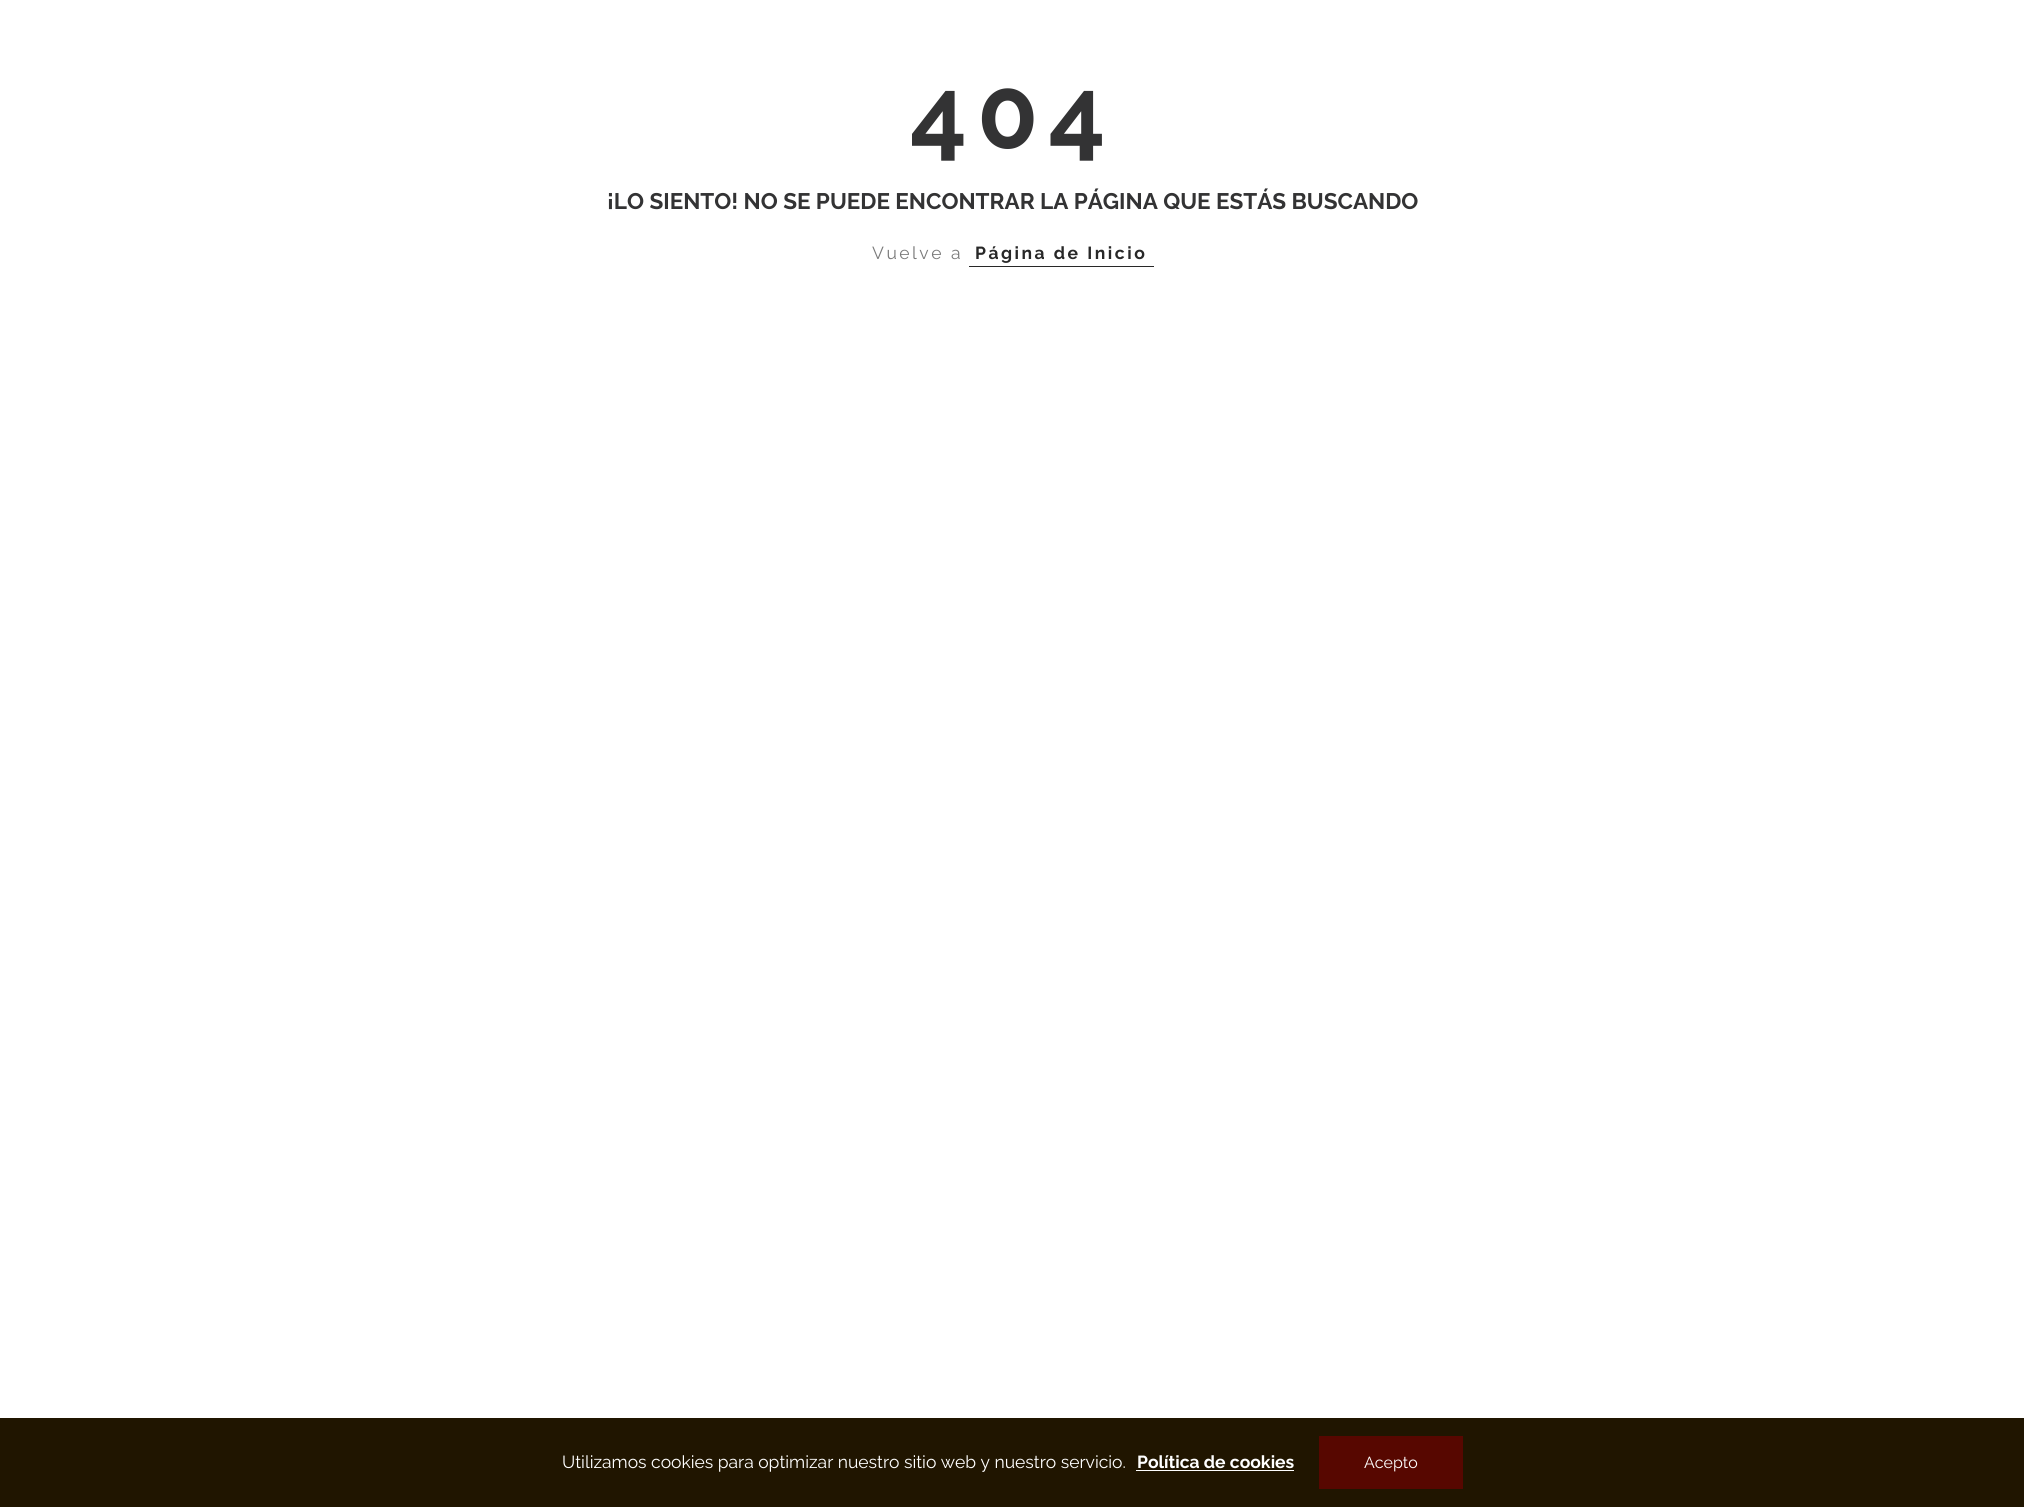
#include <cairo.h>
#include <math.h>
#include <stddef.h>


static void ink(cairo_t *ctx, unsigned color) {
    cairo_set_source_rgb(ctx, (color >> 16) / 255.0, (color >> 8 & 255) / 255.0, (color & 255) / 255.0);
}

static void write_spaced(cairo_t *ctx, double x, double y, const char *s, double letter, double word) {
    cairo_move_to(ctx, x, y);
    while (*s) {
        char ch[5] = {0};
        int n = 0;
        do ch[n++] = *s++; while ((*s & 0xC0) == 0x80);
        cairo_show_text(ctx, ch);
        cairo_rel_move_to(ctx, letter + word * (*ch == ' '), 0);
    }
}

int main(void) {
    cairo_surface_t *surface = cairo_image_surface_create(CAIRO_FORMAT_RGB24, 2024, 1507);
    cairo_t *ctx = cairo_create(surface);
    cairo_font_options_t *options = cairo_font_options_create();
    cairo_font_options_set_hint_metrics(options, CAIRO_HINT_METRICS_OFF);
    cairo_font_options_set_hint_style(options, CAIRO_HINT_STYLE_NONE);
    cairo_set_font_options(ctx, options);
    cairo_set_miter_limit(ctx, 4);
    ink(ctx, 0xFFFFFF);
    cairo_paint(ctx);
    cairo_select_font_face(ctx, "Raleway", CAIRO_FONT_SLANT_NORMAL, CAIRO_FONT_WEIGHT_BOLD);
    cairo_set_font_size(ctx, 100);
    ink(ctx, 0x333334);
    write_spaced(ctx, 910, 148, "404", 10, 0);
    cairo_set_font_size(ctx, 22.5);
    cairo_move_to(ctx, 607, 209);
    cairo_show_text(ctx, "¡LO SIENTO! NO SE PUEDE ENCONTRAR LA PÁGINA QUE ESTÁS BUSCANDO");
    cairo_select_font_face(ctx, "Raleway", CAIRO_FONT_SLANT_NORMAL, CAIRO_FONT_WEIGHT_NORMAL);
    cairo_set_font_size(ctx, 17.5);
    ink(ctx, 0x7A7A7A);
    write_spaced(ctx, 872, 259, "Vuelve a", 2.5, 0);
    cairo_select_font_face(ctx, "Raleway", CAIRO_FONT_SLANT_NORMAL, CAIRO_FONT_WEIGHT_BOLD);
    ink(ctx, 0x282828);
    write_spaced(ctx, 975, 259, "Página de Inicio", 2.5, 0);
    cairo_rectangle(ctx, 969, 266, 185, 1);
    cairo_fill(ctx);
    ink(ctx, 0x201500);
    cairo_rectangle(ctx, 0, 1418, 2024, 89);
    cairo_fill(ctx);
    cairo_select_font_face(ctx, "Raleway", CAIRO_FONT_SLANT_NORMAL, CAIRO_FONT_WEIGHT_NORMAL);
    ink(ctx, 0xFFFFFF);
    cairo_move_to(ctx, 562, 1468);
    cairo_show_text(ctx, "Utilizamos cookies para optimizar nuestro sitio web y nuestro servicio.");
    cairo_select_font_face(ctx, "Raleway", CAIRO_FONT_SLANT_NORMAL, CAIRO_FONT_WEIGHT_BOLD);
    cairo_move_to(ctx, 1137, 1468);
    cairo_show_text(ctx, "Política de cookies");
    cairo_rectangle(ctx, 1136, 1470, 158, 1);
    cairo_fill(ctx);
    ink(ctx, 0x570700);
    cairo_rectangle(ctx, 1319, 1436, 144, 53);
    cairo_fill(ctx);
    cairo_select_font_face(ctx, "Raleway", CAIRO_FONT_SLANT_NORMAL, CAIRO_FONT_WEIGHT_NORMAL);
    cairo_set_font_size(ctx, 16);
    ink(ctx, 0xFFFFFF);
    cairo_move_to(ctx, 1364, 1468);
    cairo_show_text(ctx, "Acepto");
    cairo_surface_write_to_png(surface, "image.png");
    cairo_font_options_destroy(options);
    cairo_destroy(ctx);
    cairo_surface_destroy(surface);
    return 0;
}
